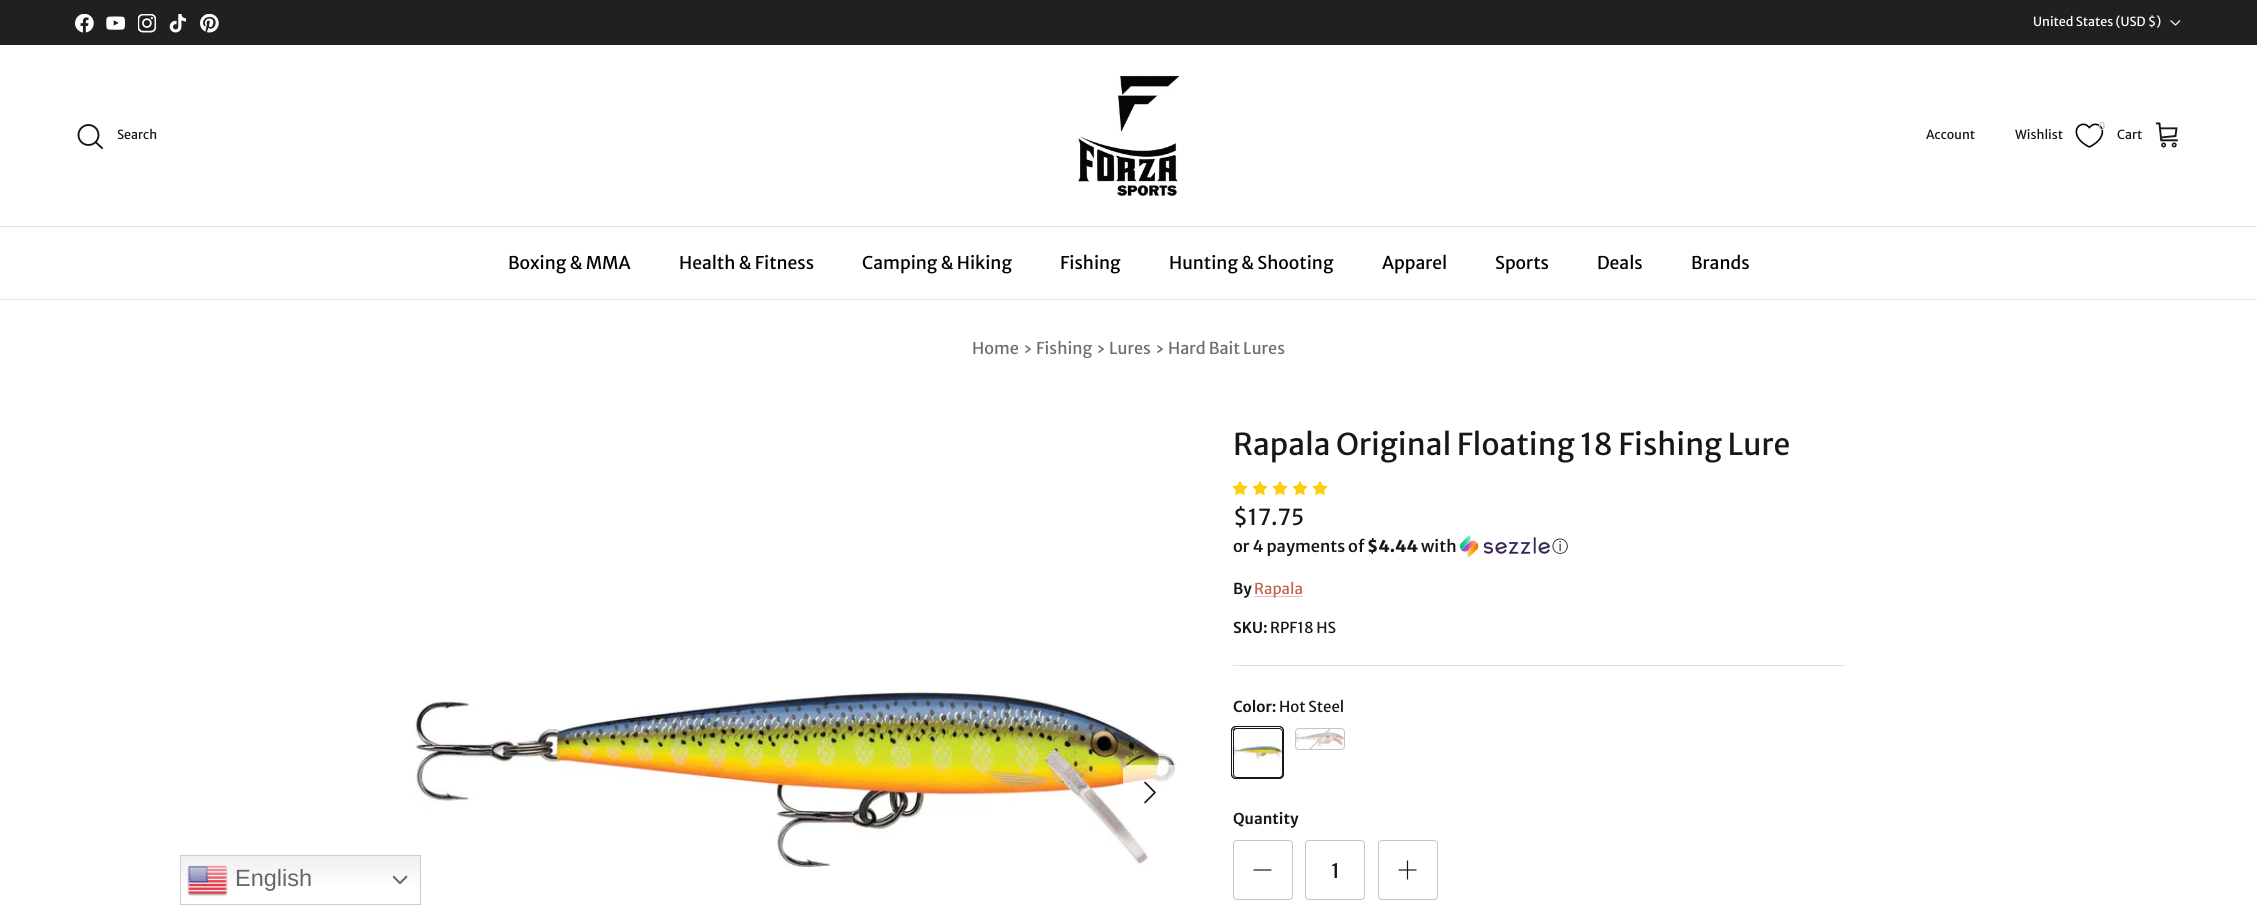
#include <cairo.h>
#include <math.h>
#include <stddef.h>

typedef struct { double x, y; const char *s; } line_t;

static void ink(cairo_t *ctx, unsigned color) {
    cairo_set_source_rgb(ctx, (color >> 16) / 255.0, (color >> 8 & 255) / 255.0, (color & 255) / 255.0);
}

static void round_path(cairo_t *ctx, double x, double y, double w, double h, double r) {
    cairo_new_sub_path(ctx);
    cairo_arc(ctx, x + w - r, y + h - r, r, 0, M_PI / 2);
    cairo_arc(ctx, x + r, y + h - r, r, M_PI / 2, M_PI);
    cairo_arc(ctx, x + r, y + r, r, M_PI, 1.5 * M_PI);
    cairo_arc(ctx, x + w - r, y + r, r, 1.5 * M_PI, 2 * M_PI);
    cairo_close_path(ctx);
}

static void paste(cairo_t *ctx, const char *path, double x, double y, double w, double h) {
    cairo_surface_t *image = cairo_image_surface_create_from_png(path);
    cairo_save(ctx);
    cairo_set_source_surface(ctx, image, x, y);
    cairo_rectangle(ctx, x, y, w, h);
    cairo_fill(ctx);
    cairo_restore(ctx);
    cairo_surface_destroy(image);
}

int main(void) {
    cairo_surface_t *surface = cairo_image_surface_create(CAIRO_FORMAT_RGB24, 2257, 905);
    cairo_t *ctx = cairo_create(surface);
    cairo_font_options_t *options = cairo_font_options_create();
    cairo_font_options_set_hint_metrics(options, CAIRO_HINT_METRICS_OFF);
    cairo_font_options_set_hint_style(options, CAIRO_HINT_STYLE_NONE);
    cairo_set_font_options(ctx, options);
    cairo_set_miter_limit(ctx, 4);
    cairo_pattern_t *gradient;
    ink(ctx, 0xFFFFFF);
    cairo_paint(ctx);
    ink(ctx, 0x202020);
    cairo_rectangle(ctx, 0, 0, 2257, 45);
    cairo_fill(ctx);
    paste(ctx, "media/1.png", 75, 14, 19, 19);
    paste(ctx, "media/2.png", 106, 16, 19, 14);
    paste(ctx, "media/3.png", 138, 14, 18, 19);
    paste(ctx, "media/4.png", 169, 14, 17, 19);
    paste(ctx, "media/5.png", 200, 14, 19, 19);
    cairo_select_font_face(ctx, "Merriweather Sans", CAIRO_FONT_SLANT_NORMAL, CAIRO_FONT_WEIGHT_NORMAL);
    cairo_set_font_size(ctx, 12.5);
    ink(ctx, 0xFFFFFF);
    cairo_move_to(ctx, 2033, 26);
    cairo_show_text(ctx, "United States (USD $)");
    cairo_new_path(ctx);
    cairo_move_to(ctx, 2180, 20.5);
    cairo_line_to(ctx, 2175.5, 25);
    cairo_line_to(ctx, 2170.5, 20.5);
    cairo_set_line_width(ctx, 1.2);
    cairo_stroke(ctx);
    ink(ctx, 0xDFE3E8);
    cairo_rectangle(ctx, 0, 226, 2257, 1);
    cairo_fill(ctx);
    cairo_arc(ctx, 88.5, 135, 10, 0, 2 * M_PI);
    ink(ctx, 0x171717);
    cairo_set_line_width(ctx, 1.9);
    cairo_stroke(ctx);
    cairo_move_to(ctx, 117, 139);
    cairo_show_text(ctx, "Search");
    cairo_new_path(ctx);
    cairo_move_to(ctx, 96, 142.5);
    cairo_line_to(ctx, 102, 148);
    cairo_set_line_cap(ctx, CAIRO_LINE_CAP_SQUARE);
    cairo_stroke(ctx);
    paste(ctx, "media/6.png", 1078, 75, 102, 122);
    cairo_move_to(ctx, 1926, 139);
    cairo_show_text(ctx, "Account");
    paste(ctx, "media/7.png", 2075, 123, 29, 25);
    cairo_select_font_face(ctx, "Merriweather Sans Medium", CAIRO_FONT_SLANT_NORMAL, CAIRO_FONT_WEIGHT_NORMAL);
    cairo_set_font_size(ctx, 11);
    ink(ctx, 0xCBCBCB);
    cairo_move_to(ctx, 2098, 130);
    cairo_show_text(ctx, "0");
    cairo_select_font_face(ctx, "Merriweather Sans", CAIRO_FONT_SLANT_NORMAL, CAIRO_FONT_WEIGHT_NORMAL);
    cairo_set_font_size(ctx, 12.5);
    ink(ctx, 0x171717);
    cairo_move_to(ctx, 2015, 139);
    cairo_show_text(ctx, "Wishlist");
    cairo_move_to(ctx, 2117, 139);
    cairo_show_text(ctx, "Cart");
    paste(ctx, "media/8.png", 2155, 122, 23, 26);
    ink(ctx, 0xDFE3E8);
    cairo_rectangle(ctx, 0, 299, 2257, 1);
    cairo_fill(ctx);
    cairo_set_font_size(ctx, 17.5);
    ink(ctx, 0x000000);
    {
        static const line_t items[] = {
            {508, 269, "Boxing & MMA"},
            {679, 269, "Health & Fitness"},
            {862, 269, "Camping & Hiking"},
            {1060, 269, "Fishing"},
            {1169, 269, "Hunting & Shooting"},
            {1382, 269, "Apparel"},
            {1495, 269, "Sports"},
            {1597, 269, "Deals"},
            {1691, 269, "Brands"},
        };
        for (size_t i = 0; i < sizeof items / sizeof *items; i++) {
            cairo_move_to(ctx, items[i].x, items[i].y);
            cairo_show_text(ctx, items[i].s);
        }
    }
    paste(ctx, "media/11.png", 413, 689, 764, 180);
    gradient = cairo_pattern_create_linear(301, 855, 301, 905);
    cairo_pattern_add_color_stop_rgba(gradient, 0, 0.937, 0.937, 0.937, 1);
    cairo_pattern_add_color_stop_rgba(gradient, 0.7, 1, 1, 1, 1);
    cairo_set_source(ctx, gradient);
    cairo_pattern_destroy(gradient);
    cairo_rectangle(ctx, 181, 856, 239, 29);
    cairo_fill(ctx);
    cairo_rectangle(ctx, 180.5, 855.5, 240, 49);
    ink(ctx, 0xCCCCCC);
    cairo_set_line_width(ctx, 1);
    cairo_set_line_cap(ctx, CAIRO_LINE_CAP_BUTT);
    cairo_stroke(ctx);
    paste(ctx, "media/9.png", 187, 865, 41, 32);
    cairo_select_font_face(ctx, "Liberation Sans", CAIRO_FONT_SLANT_NORMAL, CAIRO_FONT_WEIGHT_NORMAL);
    cairo_set_font_size(ctx, 23.5);
    ink(ctx, 0x666666);
    cairo_move_to(ctx, 235, 886);
    cairo_show_text(ctx, "English");
    paste(ctx, "media/10.png", 393, 875, 15, 10);
    cairo_select_font_face(ctx, "Merriweather Sans", CAIRO_FONT_SLANT_NORMAL, CAIRO_FONT_WEIGHT_NORMAL);
    cairo_set_font_size(ctx, 16.25);
    ink(ctx, 0x6E6E6E);
    {
        static const line_t items[] = {
            {972, 354, "Home"},
            {1023, 354, "›"},
            {1036, 354, "Fishing"},
            {1096, 354, "›"},
            {1109, 354, "Lures"},
            {1155, 354, "›"},
            {1168, 354, "Hard Bait Lures"},
        };
        for (size_t i = 0; i < sizeof items / sizeof *items; i++) {
            cairo_move_to(ctx, items[i].x, items[i].y);
            cairo_show_text(ctx, items[i].s);
        }
    }
    cairo_set_source_rgba(ctx, 1, 1, 1, 0.7);
    cairo_new_path(ctx);
    cairo_move_to(ctx, 1127, 765);
    cairo_line_to(ctx, 1178, 765);
    cairo_line_to(ctx, 1178, 820);
    cairo_line_to(ctx, 1127, 820);
    cairo_curve_to(ctx, 1125, 820, 1123, 818, 1123, 816);
    cairo_line_to(ctx, 1123, 769);
    cairo_curve_to(ctx, 1123, 767, 1125, 765, 1127, 765);
    cairo_close_path(ctx);
    cairo_fill(ctx);
    cairo_new_path(ctx);
    cairo_move_to(ctx, 1145, 802.5);
    cairo_line_to(ctx, 1155, 792.5);
    cairo_line_to(ctx, 1145, 782.5);
    ink(ctx, 0x171717);
    cairo_set_line_width(ctx, 1.7);
    cairo_set_line_cap(ctx, CAIRO_LINE_CAP_ROUND);
    cairo_set_line_join(ctx, CAIRO_LINE_JOIN_ROUND);
    cairo_stroke(ctx);
    cairo_set_font_size(ctx, 30);
    cairo_move_to(ctx, 1233, 455);
    cairo_show_text(ctx, "Rapala Original Floating 18 Fishing Lure");
    paste(ctx, "media/12.png", 1232, 481, 16, 15);
    paste(ctx, "media/12.png", 1252, 481, 16, 15);
    paste(ctx, "media/12.png", 1272, 481, 16, 15);
    paste(ctx, "media/12.png", 1292, 481, 16, 15);
    paste(ctx, "media/12.png", 1312, 481, 16, 15);
    cairo_set_font_size(ctx, 22);
    cairo_move_to(ctx, 1233, 525);
    cairo_show_text(ctx, "$17.75");
    cairo_select_font_face(ctx, "Merriweather Sans Medium", CAIRO_FONT_SLANT_NORMAL, CAIRO_FONT_WEIGHT_NORMAL);
    cairo_set_font_size(ctx, 16.25);
    cairo_move_to(ctx, 1233, 552);
    cairo_show_text(ctx, "or 4 payments of");
    cairo_select_font_face(ctx, "Merriweather Sans ExtraBold", CAIRO_FONT_SLANT_NORMAL, CAIRO_FONT_WEIGHT_NORMAL);
    cairo_move_to(ctx, 1367, 552);
    cairo_show_text(ctx, "$4.44");
    cairo_select_font_face(ctx, "Merriweather Sans Medium", CAIRO_FONT_SLANT_NORMAL, CAIRO_FONT_WEIGHT_NORMAL);
    cairo_move_to(ctx, 1421, 552);
    cairo_show_text(ctx, "with");
    paste(ctx, "media/13.png", 1460, 535, 90, 23);
    cairo_select_font_face(ctx, "WenQuanYi Zen Hei Medium", CAIRO_FONT_SLANT_NORMAL, CAIRO_FONT_WEIGHT_NORMAL);
    cairo_move_to(ctx, 1552, 552);
    cairo_show_text(ctx, "ⓘ");
    cairo_select_font_face(ctx, "Merriweather Sans SemiBold", CAIRO_FONT_SLANT_NORMAL, CAIRO_FONT_WEIGHT_NORMAL);
    cairo_set_font_size(ctx, 15);
    cairo_move_to(ctx, 1233, 594);
    cairo_show_text(ctx, "By");
    ink(ctx, 0xE6C1BA);
    cairo_rectangle(ctx, 1254, 596, 49, 1);
    cairo_fill(ctx);
    cairo_select_font_face(ctx, "Merriweather Sans", CAIRO_FONT_SLANT_NORMAL, CAIRO_FONT_WEIGHT_NORMAL);
    ink(ctx, 0xC16452);
    cairo_move_to(ctx, 1254, 594);
    cairo_show_text(ctx, "Rapala");
    cairo_select_font_face(ctx, "Merriweather Sans SemiBold", CAIRO_FONT_SLANT_NORMAL, CAIRO_FONT_WEIGHT_NORMAL);
    ink(ctx, 0x171717);
    cairo_move_to(ctx, 1233, 633);
    cairo_show_text(ctx, "SKU:");
    cairo_select_font_face(ctx, "Merriweather Sans", CAIRO_FONT_SLANT_NORMAL, CAIRO_FONT_WEIGHT_NORMAL);
    cairo_move_to(ctx, 1270, 633);
    cairo_show_text(ctx, "RPF18 HS");
    ink(ctx, 0xDFDFDF);
    cairo_rectangle(ctx, 1233, 665, 612, 1);
    cairo_fill(ctx);
    cairo_select_font_face(ctx, "Merriweather Sans SemiBold", CAIRO_FONT_SLANT_NORMAL, CAIRO_FONT_WEIGHT_NORMAL);
    ink(ctx, 0x171717);
    cairo_move_to(ctx, 1233, 712);
    cairo_show_text(ctx, "Color:");
    cairo_select_font_face(ctx, "Merriweather Sans", CAIRO_FONT_SLANT_NORMAL, CAIRO_FONT_WEIGHT_NORMAL);
    cairo_move_to(ctx, 1279, 712);
    cairo_show_text(ctx, "Hot Steel");
    round_path(ctx, 1231.5, 726.5, 52, 52, 4.5);
    cairo_set_line_width(ctx, 1);
    cairo_set_line_cap(ctx, CAIRO_LINE_CAP_BUTT);
    cairo_set_line_join(ctx, CAIRO_LINE_JOIN_MITER);
    cairo_stroke(ctx);
    paste(ctx, "media/15.png", 1232, 727, 51, 51);
    round_path(ctx, 1231.5, 726.5, 52, 52, 4.5);
    cairo_stroke(ctx);
    paste(ctx, "media/14.png", 1232, 727, 5, 5);
    round_path(ctx, 1233.5, 728.5, 49, 49, 3.5);
    cairo_stroke(ctx);
    paste(ctx, "media/16.png", 1295, 728, 50, 19);
    cairo_save(ctx);
    round_path(ctx, 1295, 728, 50, 22, 4);
    cairo_clip(ctx);
    cairo_new_path(ctx);
    cairo_move_to(ctx, 1470, 589);
    cairo_line_to(ctx, 1170, 889);
    ink(ctx, 0xC5C5C5);
    cairo_set_line_width(ctx, 1.1);
    cairo_stroke(ctx);
    cairo_restore(ctx);
    round_path(ctx, 1295.5, 728.5, 49, 21, 3.5);
    ink(ctx, 0xC5C5C5);
    cairo_stroke(ctx);
    cairo_select_font_face(ctx, "Merriweather Sans SemiBold", CAIRO_FONT_SLANT_NORMAL, CAIRO_FONT_WEIGHT_NORMAL);
    ink(ctx, 0x171717);
    cairo_move_to(ctx, 1233, 824);
    cairo_show_text(ctx, "Quantity");
    round_path(ctx, 1233.5, 840.5, 59, 59, 3.5);
    ink(ctx, 0xC5C5C5);
    cairo_stroke(ctx);
    cairo_new_path(ctx);
    cairo_move_to(ctx, 1254, 870);
    cairo_line_to(ctx, 1271, 870);
    ink(ctx, 0x171717);
    cairo_set_line_width(ctx, 1.2);
    cairo_set_line_cap(ctx, CAIRO_LINE_CAP_ROUND);
    cairo_set_line_join(ctx, CAIRO_LINE_JOIN_ROUND);
    cairo_stroke(ctx);
    round_path(ctx, 1305.5, 840.5, 59, 59, 3.5);
    ink(ctx, 0xC5C5C5);
    cairo_set_line_width(ctx, 1);
    cairo_set_line_cap(ctx, CAIRO_LINE_CAP_BUTT);
    cairo_set_line_join(ctx, CAIRO_LINE_JOIN_MITER);
    cairo_stroke(ctx);
    cairo_select_font_face(ctx, "Merriweather Sans", CAIRO_FONT_SLANT_NORMAL, CAIRO_FONT_WEIGHT_NORMAL);
    cairo_set_font_size(ctx, 20);
    ink(ctx, 0x171717);
    cairo_move_to(ctx, 1331, 878);
    cairo_show_text(ctx, "1");
    round_path(ctx, 1378.5, 840.5, 59, 59, 3.5);
    ink(ctx, 0xC5C5C5);
    cairo_stroke(ctx);
    cairo_new_path(ctx);
    cairo_move_to(ctx, 1407.5, 861);
    cairo_line_to(ctx, 1407.5, 879);
    cairo_move_to(ctx, 1399, 870);
    cairo_line_to(ctx, 1416, 870);
    ink(ctx, 0x171717);
    cairo_set_line_width(ctx, 1.2);
    cairo_set_line_cap(ctx, CAIRO_LINE_CAP_ROUND);
    cairo_set_line_join(ctx, CAIRO_LINE_JOIN_ROUND);
    cairo_stroke(ctx);
    cairo_surface_write_to_png(surface, "image.png");
    cairo_font_options_destroy(options);
    cairo_destroy(ctx);
    cairo_surface_destroy(surface);
    return 0;
}
